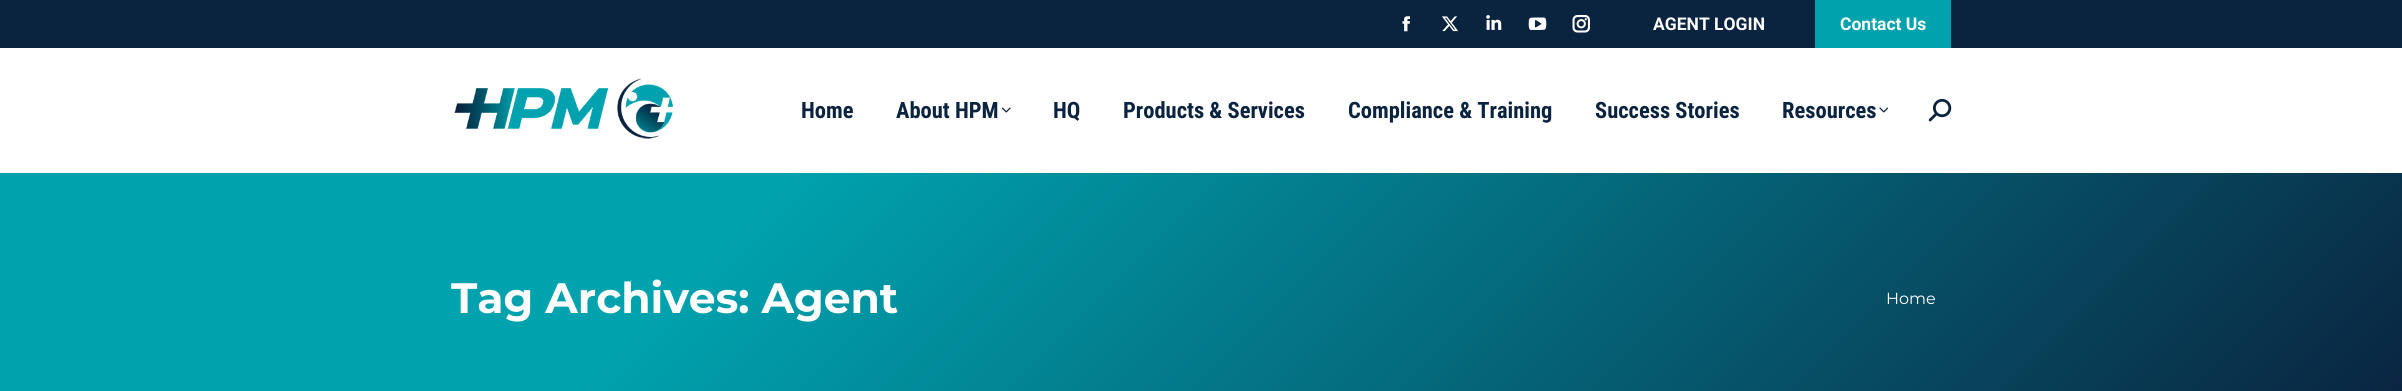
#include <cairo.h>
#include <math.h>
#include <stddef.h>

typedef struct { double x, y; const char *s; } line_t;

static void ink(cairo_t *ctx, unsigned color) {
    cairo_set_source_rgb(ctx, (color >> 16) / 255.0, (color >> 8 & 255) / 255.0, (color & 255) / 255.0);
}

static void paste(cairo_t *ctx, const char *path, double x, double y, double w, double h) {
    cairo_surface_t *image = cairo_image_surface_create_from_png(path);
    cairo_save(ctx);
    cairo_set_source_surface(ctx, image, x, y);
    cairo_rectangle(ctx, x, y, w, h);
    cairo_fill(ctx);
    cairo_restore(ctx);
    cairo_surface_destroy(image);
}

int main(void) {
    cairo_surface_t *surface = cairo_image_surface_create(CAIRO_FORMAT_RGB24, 2402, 391);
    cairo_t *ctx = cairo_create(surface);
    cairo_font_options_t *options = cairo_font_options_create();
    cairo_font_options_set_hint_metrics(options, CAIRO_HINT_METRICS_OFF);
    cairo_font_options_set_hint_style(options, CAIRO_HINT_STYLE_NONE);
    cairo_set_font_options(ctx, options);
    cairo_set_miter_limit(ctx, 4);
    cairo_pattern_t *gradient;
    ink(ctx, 0xFFFFFF);
    cairo_paint(ctx);
    ink(ctx, 0x0A233F);
    cairo_rectangle(ctx, 0, 0, 2402, 48);
    cairo_fill(ctx);
    paste(ctx, "media/1.png", 1402, 16, 8, 16);
    paste(ctx, "media/2.png", 1442, 16, 16, 16);
    paste(ctx, "media/3.png", 1486, 15, 16, 15);
    paste(ctx, "media/4.png", 1528, 17, 19, 13);
    paste(ctx, "media/5.png", 1572, 15, 18, 18);
    cairo_select_font_face(ctx, "Roboto", CAIRO_FONT_SLANT_NORMAL, CAIRO_FONT_WEIGHT_BOLD);
    cairo_set_font_size(ctx, 17.5);
    ink(ctx, 0xFFFFFF);
    cairo_move_to(ctx, 1653, 30);
    cairo_show_text(ctx, "AGENT LOGIN");
    ink(ctx, 0x00A2AE);
    cairo_rectangle(ctx, 1815, 0, 136, 48);
    cairo_fill(ctx);
    ink(ctx, 0xFFFFFF);
    cairo_move_to(ctx, 1840, 30);
    cairo_show_text(ctx, "Contact Us");
    paste(ctx, "media/6.png", 454, 78, 219, 61);
    cairo_select_font_face(ctx, "Roboto Condensed", CAIRO_FONT_SLANT_NORMAL, CAIRO_FONT_WEIGHT_BOLD);
    cairo_set_font_size(ctx, 22.5);
    ink(ctx, 0x0A233F);
    cairo_move_to(ctx, 801, 118);
    cairo_show_text(ctx, "Home");
    cairo_move_to(ctx, 896, 118);
    cairo_show_text(ctx, "About HPM");
    paste(ctx, "media/7.png", 1001, 107, 10, 6);
    {
        static const line_t items[] = {
            {1053, 118, "HQ"},
            {1123, 118, "Products & Services"},
            {1348, 118, "Compliance & Training"},
            {1595, 118, "Success Stories"},
            {1782, 118, "Resources"},
        };
        for (size_t i = 0; i < sizeof items / sizeof *items; i++) {
            cairo_move_to(ctx, items[i].x, items[i].y);
            cairo_show_text(ctx, items[i].s);
        }
    }
    paste(ctx, "media/8.png", 1879, 107, 10, 6);
    paste(ctx, "media/9.png", 1928, 98, 24, 24);
    gradient = cairo_pattern_create_linear(538, -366, 1864, 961);
    cairo_pattern_add_color_stop_rgba(gradient, 0.3, 0, 0.635, 0.682, 1);
    cairo_pattern_add_color_stop_rgba(gradient, 1, 0.039, 0.137, 0.247, 1);
    cairo_set_source(ctx, gradient);
    cairo_pattern_destroy(gradient);
    cairo_rectangle(ctx, 0, 173, 2402, 218);
    cairo_fill(ctx);
    cairo_select_font_face(ctx, "Montserrat", CAIRO_FONT_SLANT_NORMAL, CAIRO_FONT_WEIGHT_BOLD);
    cairo_set_font_size(ctx, 42.5);
    ink(ctx, 0xFFFFFF);
    cairo_move_to(ctx, 451, 313);
    cairo_show_text(ctx, "Tag Archives: Agent");
    cairo_select_font_face(ctx, "Montserrat", CAIRO_FONT_SLANT_NORMAL, CAIRO_FONT_WEIGHT_NORMAL);
    cairo_set_font_size(ctx, 16);
    cairo_move_to(ctx, 1886, 304);
    cairo_show_text(ctx, "Home");
    cairo_surface_write_to_png(surface, "image.png");
    cairo_font_options_destroy(options);
    cairo_destroy(ctx);
    cairo_surface_destroy(surface);
    return 0;
}
